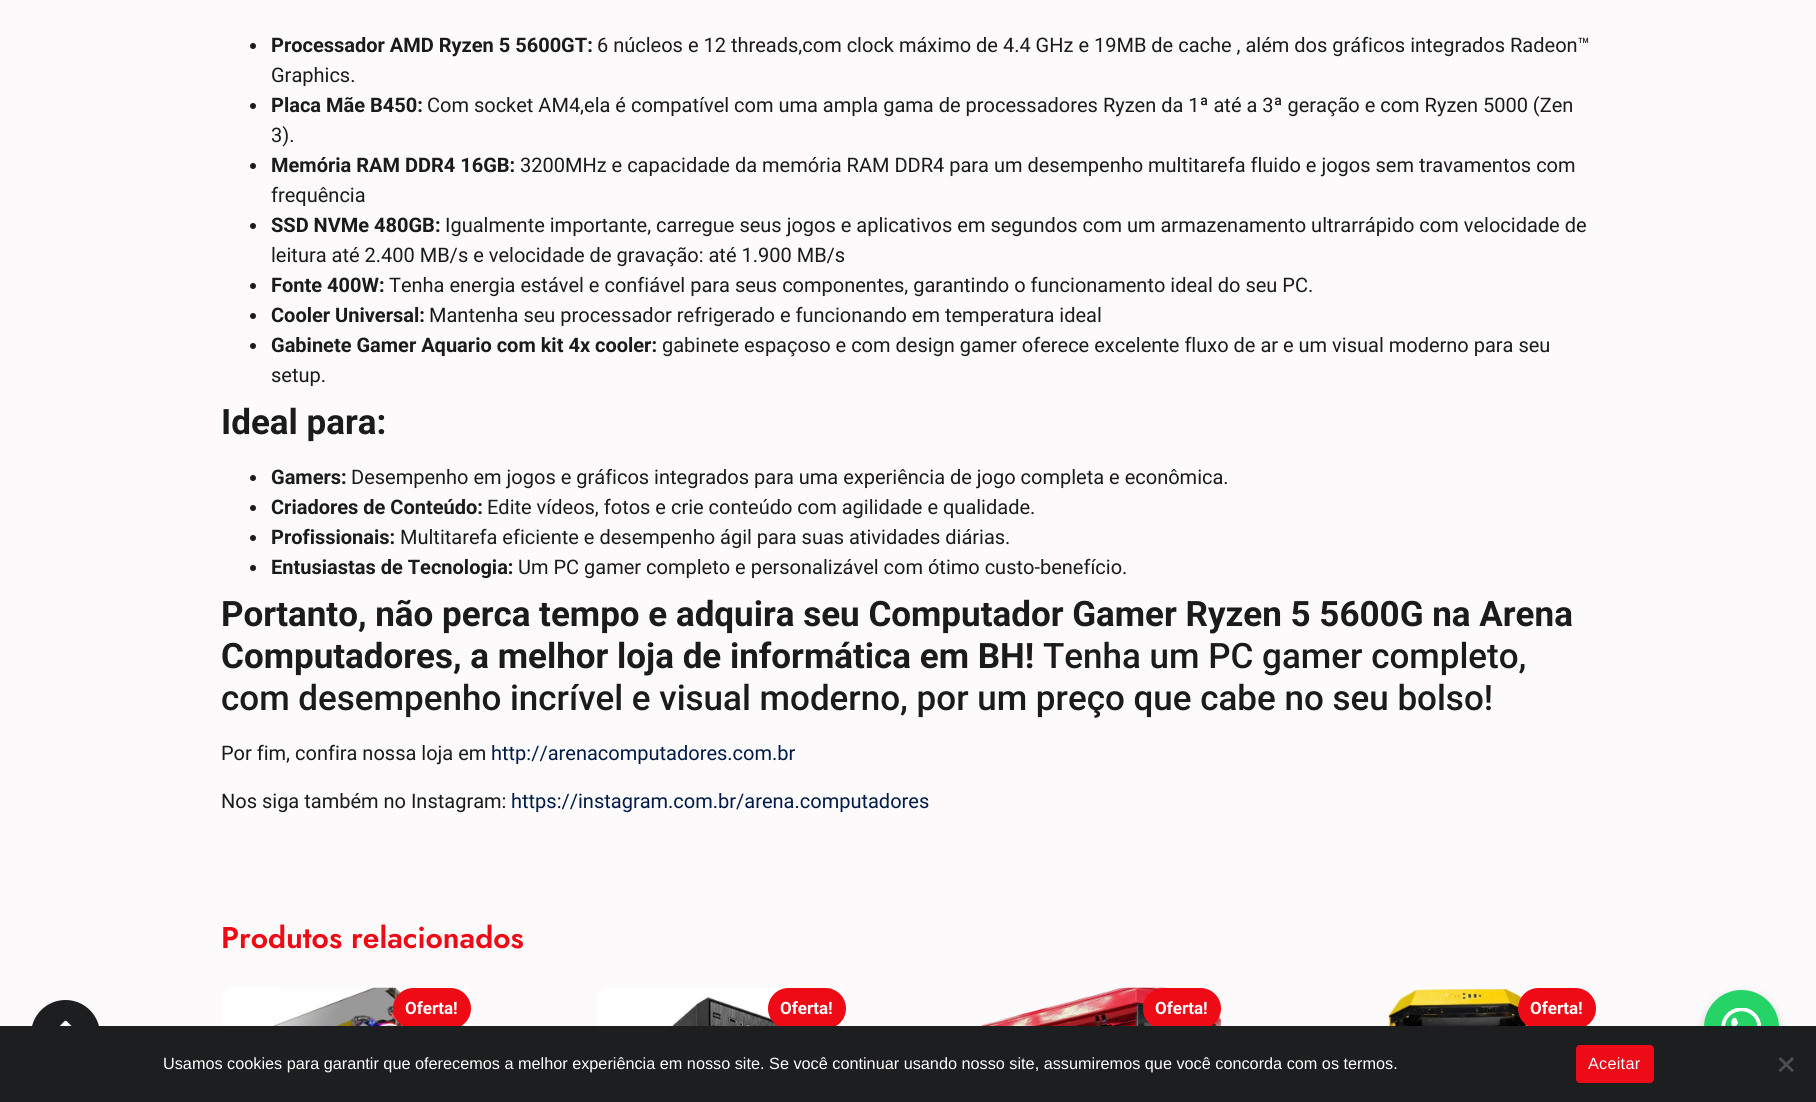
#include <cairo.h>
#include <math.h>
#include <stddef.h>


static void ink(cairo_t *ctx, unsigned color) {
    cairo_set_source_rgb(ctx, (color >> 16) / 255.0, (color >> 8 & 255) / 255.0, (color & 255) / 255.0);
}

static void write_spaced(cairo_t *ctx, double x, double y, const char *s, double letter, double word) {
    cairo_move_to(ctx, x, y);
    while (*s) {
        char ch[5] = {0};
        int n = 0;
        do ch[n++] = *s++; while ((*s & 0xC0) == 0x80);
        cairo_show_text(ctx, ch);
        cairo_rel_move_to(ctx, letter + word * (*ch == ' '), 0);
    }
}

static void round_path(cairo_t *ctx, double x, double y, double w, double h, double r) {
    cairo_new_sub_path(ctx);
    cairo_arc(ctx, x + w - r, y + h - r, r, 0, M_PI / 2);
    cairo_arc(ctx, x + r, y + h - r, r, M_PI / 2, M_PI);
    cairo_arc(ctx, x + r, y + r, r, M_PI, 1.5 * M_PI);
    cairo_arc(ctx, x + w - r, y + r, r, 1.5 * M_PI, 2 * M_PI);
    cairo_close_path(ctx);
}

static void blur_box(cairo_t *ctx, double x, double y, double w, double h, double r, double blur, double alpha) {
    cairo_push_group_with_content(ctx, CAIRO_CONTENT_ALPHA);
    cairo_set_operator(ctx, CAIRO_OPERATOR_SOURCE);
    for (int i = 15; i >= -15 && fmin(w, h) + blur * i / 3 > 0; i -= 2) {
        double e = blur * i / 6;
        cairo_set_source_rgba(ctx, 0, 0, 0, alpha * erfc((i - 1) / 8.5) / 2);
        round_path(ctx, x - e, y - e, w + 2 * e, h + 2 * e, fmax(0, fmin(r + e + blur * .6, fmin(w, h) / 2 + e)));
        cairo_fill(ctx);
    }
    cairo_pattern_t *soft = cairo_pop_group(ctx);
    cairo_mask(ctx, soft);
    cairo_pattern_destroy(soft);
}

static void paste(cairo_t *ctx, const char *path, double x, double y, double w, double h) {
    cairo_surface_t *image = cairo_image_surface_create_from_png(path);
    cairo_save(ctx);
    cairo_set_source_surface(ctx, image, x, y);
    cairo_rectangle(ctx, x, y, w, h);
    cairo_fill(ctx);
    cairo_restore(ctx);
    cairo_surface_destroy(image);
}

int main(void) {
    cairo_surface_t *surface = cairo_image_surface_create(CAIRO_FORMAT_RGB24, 1816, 1102);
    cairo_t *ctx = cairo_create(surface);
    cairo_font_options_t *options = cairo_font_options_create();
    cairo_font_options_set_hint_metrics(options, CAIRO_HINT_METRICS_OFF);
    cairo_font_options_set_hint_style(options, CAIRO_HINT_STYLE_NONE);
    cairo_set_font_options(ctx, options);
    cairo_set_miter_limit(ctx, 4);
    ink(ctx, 0xFCFAFA);
    cairo_paint(ctx);
    ink(ctx, 0x1B1B1B);
    cairo_arc(ctx, 253, 46, 3, 0, 2 * M_PI);
    cairo_fill(ctx);
    cairo_select_font_face(ctx, "Roboto", CAIRO_FONT_SLANT_NORMAL, CAIRO_FONT_WEIGHT_BOLD);
    cairo_set_font_size(ctx, 20);
    cairo_move_to(ctx, 271, 52);
    cairo_show_text(ctx, "Processador AMD Ryzen 5 5600GT:");
    cairo_select_font_face(ctx, "Roboto", CAIRO_FONT_SLANT_NORMAL, CAIRO_FONT_WEIGHT_NORMAL);
    cairo_move_to(ctx, 597, 52);
    cairo_show_text(ctx, "6 núcleos e 12 threads,com clock máximo de 4.4 GHz e 19MB de cache , além dos gráficos integrados Radeon™");
    cairo_move_to(ctx, 271, 82);
    cairo_show_text(ctx, "Graphics.");
    cairo_new_path(ctx);
    cairo_arc(ctx, 253, 106, 3, 0, 2 * M_PI);
    cairo_fill(ctx);
    cairo_select_font_face(ctx, "Roboto", CAIRO_FONT_SLANT_NORMAL, CAIRO_FONT_WEIGHT_BOLD);
    cairo_move_to(ctx, 271, 112);
    cairo_show_text(ctx, "Placa Mãe B450:");
    cairo_select_font_face(ctx, "Roboto", CAIRO_FONT_SLANT_NORMAL, CAIRO_FONT_WEIGHT_NORMAL);
    cairo_move_to(ctx, 427, 112);
    cairo_show_text(ctx, "Com socket AM4,ela é compatível com uma ampla gama de processadores Ryzen da 1ª até a 3ª geração e com Ryzen 5000 (Zen");
    cairo_move_to(ctx, 271, 142);
    cairo_show_text(ctx, "3).");
    cairo_new_path(ctx);
    cairo_arc(ctx, 253, 166, 3, 0, 2 * M_PI);
    cairo_fill(ctx);
    cairo_select_font_face(ctx, "Roboto", CAIRO_FONT_SLANT_NORMAL, CAIRO_FONT_WEIGHT_BOLD);
    cairo_move_to(ctx, 271, 172);
    cairo_show_text(ctx, "Memória RAM DDR4 16GB:");
    cairo_select_font_face(ctx, "Roboto", CAIRO_FONT_SLANT_NORMAL, CAIRO_FONT_WEIGHT_NORMAL);
    cairo_move_to(ctx, 520, 172);
    cairo_show_text(ctx, "3200MHz e capacidade da memória RAM DDR4 para um desempenho multitarefa fluido e jogos sem travamentos com");
    cairo_move_to(ctx, 271, 202);
    cairo_show_text(ctx, "frequência");
    cairo_new_path(ctx);
    cairo_arc(ctx, 253, 226, 3, 0, 2 * M_PI);
    cairo_fill(ctx);
    cairo_select_font_face(ctx, "Roboto", CAIRO_FONT_SLANT_NORMAL, CAIRO_FONT_WEIGHT_BOLD);
    cairo_move_to(ctx, 271, 232);
    cairo_show_text(ctx, "SSD NVMe 480GB:");
    cairo_select_font_face(ctx, "Roboto", CAIRO_FONT_SLANT_NORMAL, CAIRO_FONT_WEIGHT_NORMAL);
    cairo_move_to(ctx, 445, 232);
    cairo_show_text(ctx, "Igualmente importante, carregue seus jogos e aplicativos em segundos com um armazenamento ultrarrápido com velocidade de");
    cairo_move_to(ctx, 271, 262);
    cairo_show_text(ctx, "leitura até 2.400 MB/s e velocidade de gravação: até 1.900 MB/s");
    cairo_new_path(ctx);
    cairo_arc(ctx, 253, 286, 3, 0, 2 * M_PI);
    cairo_fill(ctx);
    cairo_select_font_face(ctx, "Roboto", CAIRO_FONT_SLANT_NORMAL, CAIRO_FONT_WEIGHT_BOLD);
    cairo_move_to(ctx, 271, 292);
    cairo_show_text(ctx, "Fonte 400W:");
    cairo_select_font_face(ctx, "Roboto", CAIRO_FONT_SLANT_NORMAL, CAIRO_FONT_WEIGHT_NORMAL);
    cairo_move_to(ctx, 389, 292);
    cairo_show_text(ctx, "Tenha energia estável e confiável para seus componentes, garantindo o funcionamento ideal do seu PC.");
    cairo_new_path(ctx);
    cairo_arc(ctx, 253, 316, 3, 0, 2 * M_PI);
    cairo_fill(ctx);
    cairo_select_font_face(ctx, "Roboto", CAIRO_FONT_SLANT_NORMAL, CAIRO_FONT_WEIGHT_BOLD);
    cairo_move_to(ctx, 271, 322);
    cairo_show_text(ctx, "Cooler Universal:");
    cairo_select_font_face(ctx, "Roboto", CAIRO_FONT_SLANT_NORMAL, CAIRO_FONT_WEIGHT_NORMAL);
    cairo_move_to(ctx, 429, 322);
    cairo_show_text(ctx, "Mantenha seu processador refrigerado e funcionando em temperatura ideal");
    cairo_new_path(ctx);
    cairo_arc(ctx, 253, 346, 3, 0, 2 * M_PI);
    cairo_fill(ctx);
    cairo_select_font_face(ctx, "Roboto", CAIRO_FONT_SLANT_NORMAL, CAIRO_FONT_WEIGHT_BOLD);
    cairo_move_to(ctx, 271, 352);
    cairo_show_text(ctx, "Gabinete Gamer Aquario com kit 4x cooler:");
    cairo_select_font_face(ctx, "Roboto", CAIRO_FONT_SLANT_NORMAL, CAIRO_FONT_WEIGHT_NORMAL);
    cairo_move_to(ctx, 662, 352);
    cairo_show_text(ctx, "gabinete espaçoso e com design gamer oferece excelente fluxo de ar e um visual moderno para seu");
    cairo_move_to(ctx, 271, 382);
    cairo_show_text(ctx, "setup.");
    cairo_select_font_face(ctx, "Roboto", CAIRO_FONT_SLANT_NORMAL, CAIRO_FONT_WEIGHT_BOLD);
    cairo_set_font_size(ctx, 35);
    cairo_move_to(ctx, 221, 434);
    cairo_show_text(ctx, "Ideal para:");
    cairo_new_path(ctx);
    cairo_arc(ctx, 253, 478, 3, 0, 2 * M_PI);
    cairo_fill(ctx);
    cairo_set_font_size(ctx, 20);
    cairo_move_to(ctx, 271, 484);
    cairo_show_text(ctx, "Gamers:");
    cairo_select_font_face(ctx, "Roboto", CAIRO_FONT_SLANT_NORMAL, CAIRO_FONT_WEIGHT_NORMAL);
    cairo_move_to(ctx, 351, 484);
    cairo_show_text(ctx, "Desempenho em jogos e gráficos integrados para uma experiência de jogo completa e econômica.");
    cairo_new_path(ctx);
    cairo_arc(ctx, 253, 508, 3, 0, 2 * M_PI);
    cairo_fill(ctx);
    cairo_select_font_face(ctx, "Roboto", CAIRO_FONT_SLANT_NORMAL, CAIRO_FONT_WEIGHT_BOLD);
    cairo_move_to(ctx, 271, 514);
    cairo_show_text(ctx, "Criadores de Conteúdo:");
    cairo_select_font_face(ctx, "Roboto", CAIRO_FONT_SLANT_NORMAL, CAIRO_FONT_WEIGHT_NORMAL);
    cairo_move_to(ctx, 487, 514);
    cairo_show_text(ctx, "Edite vídeos, fotos e crie conteúdo com agilidade e qualidade.");
    cairo_new_path(ctx);
    cairo_arc(ctx, 253, 538, 3, 0, 2 * M_PI);
    cairo_fill(ctx);
    cairo_select_font_face(ctx, "Roboto", CAIRO_FONT_SLANT_NORMAL, CAIRO_FONT_WEIGHT_BOLD);
    cairo_move_to(ctx, 271, 544);
    cairo_show_text(ctx, "Profissionais:");
    cairo_select_font_face(ctx, "Roboto", CAIRO_FONT_SLANT_NORMAL, CAIRO_FONT_WEIGHT_NORMAL);
    cairo_move_to(ctx, 400, 544);
    cairo_show_text(ctx, "Multitarefa eficiente e desempenho ágil para suas atividades diárias.");
    cairo_new_path(ctx);
    cairo_arc(ctx, 253, 568, 3, 0, 2 * M_PI);
    cairo_fill(ctx);
    cairo_select_font_face(ctx, "Roboto", CAIRO_FONT_SLANT_NORMAL, CAIRO_FONT_WEIGHT_BOLD);
    cairo_move_to(ctx, 271, 574);
    cairo_show_text(ctx, "Entusiastas de Tecnologia:");
    cairo_select_font_face(ctx, "Roboto", CAIRO_FONT_SLANT_NORMAL, CAIRO_FONT_WEIGHT_NORMAL);
    cairo_move_to(ctx, 518, 574);
    cairo_show_text(ctx, "Um PC gamer completo e personalizável com ótimo custo-benefício.");
    cairo_select_font_face(ctx, "Roboto", CAIRO_FONT_SLANT_NORMAL, CAIRO_FONT_WEIGHT_BOLD);
    cairo_set_font_size(ctx, 35);
    cairo_move_to(ctx, 221, 626);
    cairo_show_text(ctx, "Portanto, não perca tempo e adquira seu Computador Gamer Ryzen 5 5600G na Arena");
    cairo_move_to(ctx, 221, 668);
    cairo_show_text(ctx, "Computadores, a melhor loja de informática em BH!");
    cairo_select_font_face(ctx, "Roboto Medium", CAIRO_FONT_SLANT_NORMAL, CAIRO_FONT_WEIGHT_NORMAL);
    cairo_move_to(ctx, 1043, 668);
    cairo_show_text(ctx, "Tenha um PC gamer completo,");
    cairo_move_to(ctx, 221, 710);
    cairo_show_text(ctx, "com desempenho incrível e visual moderno, por um preço que cabe no seu bolso!");
    cairo_select_font_face(ctx, "Roboto", CAIRO_FONT_SLANT_NORMAL, CAIRO_FONT_WEIGHT_NORMAL);
    cairo_set_font_size(ctx, 20);
    cairo_move_to(ctx, 221, 760);
    cairo_show_text(ctx, "Por fim, confira nossa loja em");
    ink(ctx, 0x001B48);
    cairo_move_to(ctx, 491, 760);
    cairo_show_text(ctx, "http://arenacomputadores.com.br");
    ink(ctx, 0x1B1B1B);
    cairo_move_to(ctx, 221, 808);
    cairo_show_text(ctx, "Nos siga também no Instagram:");
    ink(ctx, 0x001B48);
    cairo_move_to(ctx, 511, 808);
    cairo_show_text(ctx, "https://instagram.com.br/arena.computadores");
    cairo_select_font_face(ctx, "Jost SemiBold", CAIRO_FONT_SLANT_NORMAL, CAIRO_FONT_WEIGHT_NORMAL);
    cairo_set_font_size(ctx, 30);
    ink(ctx, 0xEE0B16);
    cairo_move_to(ctx, 221, 948);
    cairo_show_text(ctx, "Produtos relacionados");
    paste(ctx, "media/1.png", 222, 987, 249, 39);
    round_path(ctx, 393, 988, 78, 41, 20.5);
    cairo_fill(ctx);
    cairo_select_font_face(ctx, "Roboto", CAIRO_FONT_SLANT_NORMAL, CAIRO_FONT_WEIGHT_BOLD);
    cairo_set_font_size(ctx, 17);
    ink(ctx, 0xFFFFFF);
    cairo_move_to(ctx, 405, 1014);
    cairo_show_text(ctx, "Oferta!");
    paste(ctx, "media/2.png", 597, 988, 249, 38);
    ink(ctx, 0xEE0B16);
    round_path(ctx, 768, 988, 78, 41, 20.5);
    cairo_fill(ctx);
    ink(ctx, 0xFFFFFF);
    cairo_move_to(ctx, 780, 1014);
    cairo_show_text(ctx, "Oferta!");
    paste(ctx, "media/3.png", 981, 987, 241, 39);
    ink(ctx, 0xEE0B16);
    round_path(ctx, 1143, 988, 78, 41, 20.5);
    cairo_fill(ctx);
    ink(ctx, 0xFFFFFF);
    cairo_move_to(ctx, 1155, 1014);
    cairo_show_text(ctx, "Oferta!");
    paste(ctx, "media/4.png", 1388, 989, 140, 37);
    ink(ctx, 0xEE0B16);
    round_path(ctx, 1518, 988, 78, 41, 20.5);
    cairo_fill(ctx);
    ink(ctx, 0xFFFFFF);
    cairo_move_to(ctx, 1530, 1014);
    cairo_show_text(ctx, "Oferta!");
    ink(ctx, 0x1D1E20);
    cairo_new_path(ctx);
    cairo_arc(ctx, 65.5, 1034.5, 34.5, 0, 2 * M_PI);
    cairo_fill(ctx);
    paste(ctx, "media/5.png", 59, 1020, 13, 6);
    ink(ctx, 0x000000);
    blur_box(ctx, 1704, 995, 75, 75, 37.5, 5, 0.2);
    ink(ctx, 0x25D366);
    cairo_arc(ctx, 1741.5, 1027.5, 37.5, 0, 2 * M_PI);
    cairo_fill(ctx);
    paste(ctx, "media/6.png", 1721, 1008, 40, 18);
    ink(ctx, 0x1D1E20);
    cairo_rectangle(ctx, 0, 1026, 1816, 76);
    cairo_fill(ctx);
    cairo_select_font_face(ctx, "Liberation Sans", CAIRO_FONT_SLANT_NORMAL, CAIRO_FONT_WEIGHT_NORMAL);
    cairo_set_font_size(ctx, 16.25);
    ink(ctx, 0xFFFFFF);
    cairo_move_to(ctx, 163, 1069);
    cairo_show_text(ctx, "Usamos cookies para garantir que oferecemos a melhor experiência em nosso site. Se você continuar usando nosso site, assumiremos que você concorda com os termos.");
    ink(ctx, 0xED0B17);
    round_path(ctx, 1576, 1045, 78, 38, 4);
    cairo_fill(ctx);
    ink(ctx, 0xFFFFFF);
    write_spaced(ctx, 1588, 1069, "Aceitar", 0.25, 0);
    ink(ctx, 0x4F4F50);
    cairo_new_path(ctx);
    cairo_move_to(ctx, 1792, 1057);
    cairo_line_to(ctx, 1794, 1059);
    cairo_line_to(ctx, 1780.5, 1072);
    cairo_line_to(ctx, 1778.5, 1070.5);
    cairo_close_path(ctx);
    cairo_fill(ctx);
    cairo_new_path(ctx);
    cairo_move_to(ctx, 1778.5, 1059);
    cairo_line_to(ctx, 1780.5, 1057);
    cairo_line_to(ctx, 1794, 1070.5);
    cairo_line_to(ctx, 1792, 1072);
    cairo_close_path(ctx);
    cairo_fill(ctx);
    cairo_surface_write_to_png(surface, "image.png");
    cairo_font_options_destroy(options);
    cairo_destroy(ctx);
    cairo_surface_destroy(surface);
    return 0;
}
